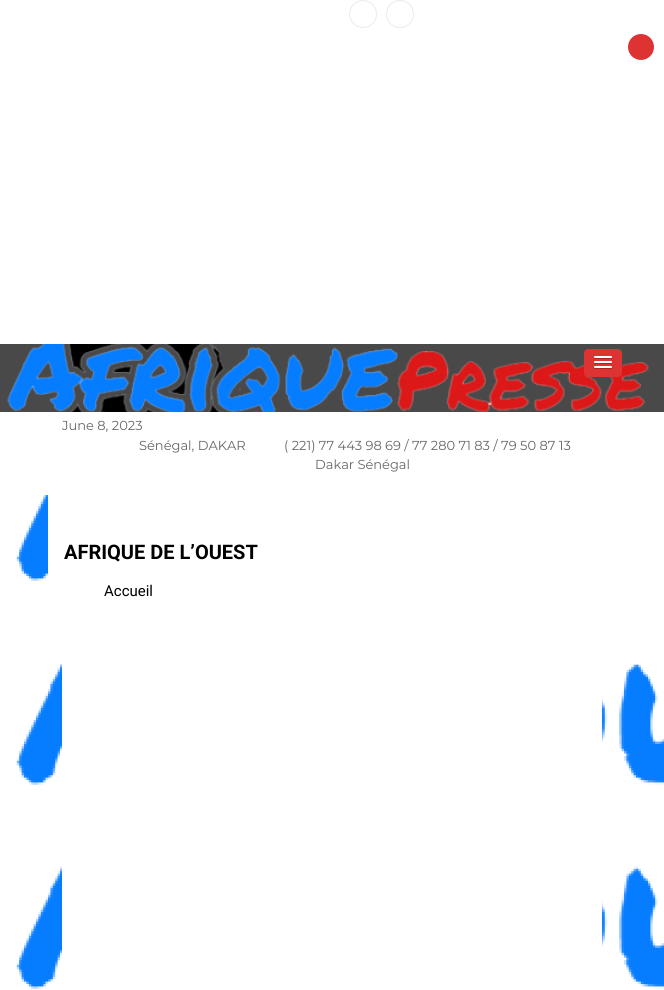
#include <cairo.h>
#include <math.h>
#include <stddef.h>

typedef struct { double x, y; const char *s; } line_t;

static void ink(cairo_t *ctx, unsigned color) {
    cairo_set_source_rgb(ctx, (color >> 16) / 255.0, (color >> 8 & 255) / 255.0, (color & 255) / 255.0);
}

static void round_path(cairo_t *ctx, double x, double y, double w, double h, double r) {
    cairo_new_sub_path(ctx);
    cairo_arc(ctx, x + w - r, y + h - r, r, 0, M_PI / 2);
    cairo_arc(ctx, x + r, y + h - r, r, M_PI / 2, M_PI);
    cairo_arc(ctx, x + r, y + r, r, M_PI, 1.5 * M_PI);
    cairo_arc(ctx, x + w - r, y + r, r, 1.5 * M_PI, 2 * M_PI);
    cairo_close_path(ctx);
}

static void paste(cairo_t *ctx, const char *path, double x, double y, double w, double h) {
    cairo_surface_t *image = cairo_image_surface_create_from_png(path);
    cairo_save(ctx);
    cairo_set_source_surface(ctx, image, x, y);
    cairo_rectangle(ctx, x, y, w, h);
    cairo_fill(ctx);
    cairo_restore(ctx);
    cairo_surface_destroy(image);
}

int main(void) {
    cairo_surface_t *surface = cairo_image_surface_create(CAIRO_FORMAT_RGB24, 664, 990);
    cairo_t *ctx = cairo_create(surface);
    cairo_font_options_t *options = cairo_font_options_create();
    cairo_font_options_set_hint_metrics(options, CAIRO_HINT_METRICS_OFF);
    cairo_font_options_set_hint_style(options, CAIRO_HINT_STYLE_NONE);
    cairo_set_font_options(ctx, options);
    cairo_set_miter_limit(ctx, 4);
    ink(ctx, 0xFFFFFF);
    cairo_paint(ctx);
    paste(ctx, "media/1.png", 16, 495, 648, 494);
    cairo_arc(ctx, 363, 14, 13.5, 0, 2 * M_PI);
    ink(ctx, 0xEBEBEB);
    cairo_set_line_width(ctx, 1);
    cairo_stroke(ctx);
    cairo_arc(ctx, 400, 14, 13.5, 0, 2 * M_PI);
    cairo_stroke(ctx);
    ink(ctx, 0xDD3333);
    cairo_arc(ctx, 641, 47, 13, 0, 2 * M_PI);
    cairo_fill(ctx);
    ink(ctx, 0x494949);
    cairo_rectangle(ctx, 0, 344, 664, 68);
    cairo_fill(ctx);
    paste(ctx, "media/2.png", 7, 344, 642, 68);
    ink(ctx, 0xDD3333);
    round_path(ctx, 584, 349, 38, 28, 4);
    cairo_fill(ctx);
    ink(ctx, 0xA62626);
    cairo_new_path(ctx);
    cairo_move_to(ctx, 594, 357.5);
    cairo_curve_to(ctx, 593, 359.5, 597.5, 359, 597.5, 359);
    cairo_line_to(ctx, 608.5, 359);
    cairo_curve_to(ctx, 608.5, 359, 613, 359.5, 612, 357.5);
    cairo_curve_to(ctx, 611, 358.5, 604.5, 358, 603, 358);
    cairo_curve_to(ctx, 601.5, 358, 595, 358.5, 594, 357.5);
    cairo_close_path(ctx);
    cairo_fill(ctx);
    ink(ctx, 0xFFFFFF);
    round_path(ctx, 594, 356, 18, 2, 1);
    cairo_fill(ctx);
    ink(ctx, 0xA62626);
    cairo_new_path(ctx);
    cairo_move_to(ctx, 594, 362.5);
    cairo_curve_to(ctx, 593, 364.5, 597.5, 364, 597.5, 364);
    cairo_line_to(ctx, 608.5, 364);
    cairo_curve_to(ctx, 608.5, 364, 613, 364.5, 612, 362.5);
    cairo_curve_to(ctx, 611, 363.5, 604.5, 363, 603, 363);
    cairo_curve_to(ctx, 601.5, 363, 595, 363.5, 594, 362.5);
    cairo_close_path(ctx);
    cairo_fill(ctx);
    ink(ctx, 0xFFFFFF);
    round_path(ctx, 594, 361, 18, 2, 1);
    cairo_fill(ctx);
    ink(ctx, 0xA62626);
    cairo_new_path(ctx);
    cairo_move_to(ctx, 594, 367.5);
    cairo_curve_to(ctx, 593, 369.5, 597.5, 369, 597.5, 369);
    cairo_line_to(ctx, 608.5, 369);
    cairo_curve_to(ctx, 608.5, 369, 613, 369.5, 612, 367.5);
    cairo_curve_to(ctx, 611, 368.5, 604.5, 368, 603, 368);
    cairo_curve_to(ctx, 601.5, 368, 595, 368.5, 594, 367.5);
    cairo_close_path(ctx);
    cairo_fill(ctx);
    ink(ctx, 0xFFFFFF);
    round_path(ctx, 594, 366, 18, 2, 1);
    cairo_fill(ctx);
    cairo_select_font_face(ctx, "Montserrat", CAIRO_FONT_SLANT_NORMAL, CAIRO_FONT_WEIGHT_NORMAL);
    cairo_set_font_size(ctx, 13);
    ink(ctx, 0x666666);
    {
        static const line_t items[] = {
            {62, 430, "June 8, 2023"},
            {139, 450, "Sénégal, DAKAR"},
            {284, 450, "( 221) 77 443 98 69 / 77 280 71 83 / 79 50 87 13"},
            {315, 469, "Dakar Sénégal"},
        };
        for (size_t i = 0; i < sizeof items / sizeof *items; i++) {
            cairo_move_to(ctx, items[i].x, items[i].y);
            cairo_show_text(ctx, items[i].s);
        }
    }
    ink(ctx, 0xFFFFFF);
    cairo_rectangle(ctx, 48, 495, 616, 169);
    cairo_fill(ctx);
    cairo_select_font_face(ctx, "Roboto", CAIRO_FONT_SLANT_NORMAL, CAIRO_FONT_WEIGHT_BOLD);
    cairo_set_font_size(ctx, 20);
    ink(ctx, 0x000000);
    cairo_move_to(ctx, 64, 559);
    cairo_show_text(ctx, "AFRIQUE DE L’OUEST");
    cairo_select_font_face(ctx, "Roboto", CAIRO_FONT_SLANT_NORMAL, CAIRO_FONT_WEIGHT_NORMAL);
    cairo_set_font_size(ctx, 15);
    cairo_move_to(ctx, 104, 596);
    cairo_show_text(ctx, "Accueil");
    ink(ctx, 0xFFFFFF);
    cairo_rectangle(ctx, 62, 664, 540, 325);
    cairo_fill(ctx);
    cairo_surface_write_to_png(surface, "image.png");
    cairo_font_options_destroy(options);
    cairo_destroy(ctx);
    cairo_surface_destroy(surface);
    return 0;
}
